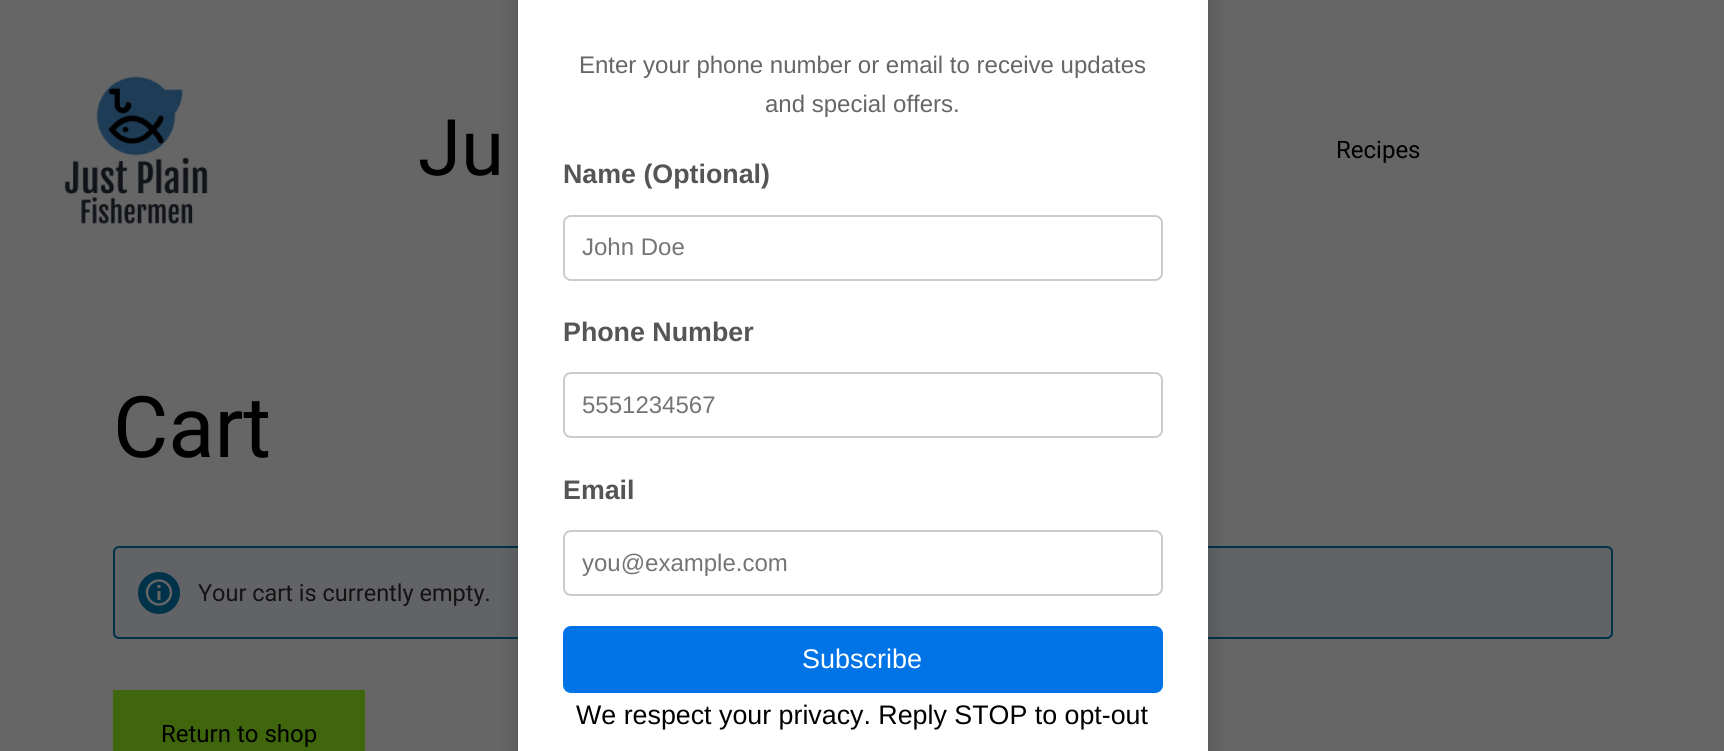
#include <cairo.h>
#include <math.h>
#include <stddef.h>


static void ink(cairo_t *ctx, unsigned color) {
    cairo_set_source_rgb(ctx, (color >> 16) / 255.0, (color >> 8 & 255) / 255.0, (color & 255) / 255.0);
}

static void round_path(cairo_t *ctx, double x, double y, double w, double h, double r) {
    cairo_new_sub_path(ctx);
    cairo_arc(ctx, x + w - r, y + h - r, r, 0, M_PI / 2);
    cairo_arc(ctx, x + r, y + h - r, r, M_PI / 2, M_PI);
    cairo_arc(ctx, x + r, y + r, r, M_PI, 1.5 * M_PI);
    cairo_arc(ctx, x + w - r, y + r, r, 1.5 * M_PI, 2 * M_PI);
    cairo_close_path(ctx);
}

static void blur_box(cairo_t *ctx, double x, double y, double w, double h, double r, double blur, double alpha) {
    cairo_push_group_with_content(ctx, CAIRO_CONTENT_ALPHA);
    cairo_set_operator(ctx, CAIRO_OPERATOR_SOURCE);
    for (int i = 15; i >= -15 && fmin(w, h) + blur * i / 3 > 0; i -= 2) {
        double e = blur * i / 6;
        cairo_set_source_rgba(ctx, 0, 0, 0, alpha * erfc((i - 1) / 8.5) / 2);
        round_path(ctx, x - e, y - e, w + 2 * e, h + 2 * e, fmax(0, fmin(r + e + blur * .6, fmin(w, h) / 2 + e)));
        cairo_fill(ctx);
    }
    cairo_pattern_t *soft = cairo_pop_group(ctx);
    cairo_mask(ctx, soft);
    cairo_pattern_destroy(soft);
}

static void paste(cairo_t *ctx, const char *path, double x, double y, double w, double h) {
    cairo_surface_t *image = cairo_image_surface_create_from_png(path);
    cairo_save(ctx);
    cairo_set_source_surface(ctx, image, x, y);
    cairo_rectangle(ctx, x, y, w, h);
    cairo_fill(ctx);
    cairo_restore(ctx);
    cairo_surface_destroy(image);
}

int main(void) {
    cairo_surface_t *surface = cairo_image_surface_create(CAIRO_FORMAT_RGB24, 1724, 751);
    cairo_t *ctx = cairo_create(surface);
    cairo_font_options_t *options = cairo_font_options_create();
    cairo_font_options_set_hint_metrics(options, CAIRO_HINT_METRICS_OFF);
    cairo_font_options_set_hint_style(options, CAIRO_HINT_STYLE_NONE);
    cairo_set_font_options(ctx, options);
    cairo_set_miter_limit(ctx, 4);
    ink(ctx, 0x666666);
    cairo_paint(ctx);
    ink(ctx, 0x626366);
    round_path(ctx, 114, 547, 1498, 91, 5);
    cairo_fill_preserve(ctx);
    ink(ctx, 0x00324A);
    cairo_stroke(ctx);
    ink(ctx, 0x000000);
    blur_box(ctx, 518, -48, 690, 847, 15, 11, 0.2);
    ink(ctx, 0xFFFFFF);
    cairo_rectangle(ctx, 518, 0, 690, 751);
    cairo_fill(ctx);
    cairo_select_font_face(ctx, "Liberation Sans", CAIRO_FONT_SLANT_NORMAL, CAIRO_FONT_WEIGHT_NORMAL);
    cairo_set_font_size(ctx, 24);
    ink(ctx, 0x666666);
    cairo_move_to(ctx, 579, 73);
    cairo_show_text(ctx, "Enter your phone number or email to receive updates");
    cairo_move_to(ctx, 765, 112);
    cairo_show_text(ctx, "and special offers.");
    cairo_select_font_face(ctx, "Liberation Sans", CAIRO_FONT_SLANT_NORMAL, CAIRO_FONT_WEIGHT_BOLD);
    cairo_set_font_size(ctx, 26.8);
    ink(ctx, 0x555555);
    cairo_move_to(ctx, 563, 183);
    cairo_show_text(ctx, "Name (Optional)");
    round_path(ctx, 564, 216, 598, 64, 7);
    ink(ctx, 0xCCCCCC);
    cairo_stroke(ctx);
    cairo_select_font_face(ctx, "Liberation Sans", CAIRO_FONT_SLANT_NORMAL, CAIRO_FONT_WEIGHT_NORMAL);
    cairo_set_font_size(ctx, 24);
    ink(ctx, 0x757575);
    cairo_move_to(ctx, 582, 255);
    cairo_show_text(ctx, "John Doe");
    cairo_select_font_face(ctx, "Liberation Sans", CAIRO_FONT_SLANT_NORMAL, CAIRO_FONT_WEIGHT_BOLD);
    cairo_set_font_size(ctx, 26.8);
    ink(ctx, 0x555555);
    cairo_move_to(ctx, 563, 341);
    cairo_show_text(ctx, "Phone Number");
    round_path(ctx, 564, 373, 598, 64, 7);
    ink(ctx, 0xCCCCCC);
    cairo_stroke(ctx);
    cairo_select_font_face(ctx, "Liberation Sans", CAIRO_FONT_SLANT_NORMAL, CAIRO_FONT_WEIGHT_NORMAL);
    cairo_set_font_size(ctx, 24);
    ink(ctx, 0x757575);
    cairo_move_to(ctx, 582, 413);
    cairo_show_text(ctx, "5551234567");
    cairo_select_font_face(ctx, "Liberation Sans", CAIRO_FONT_SLANT_NORMAL, CAIRO_FONT_WEIGHT_BOLD);
    cairo_set_font_size(ctx, 26.8);
    ink(ctx, 0x555555);
    cairo_move_to(ctx, 563, 499);
    cairo_show_text(ctx, "Email");
    round_path(ctx, 564, 531, 598, 64, 7);
    ink(ctx, 0xCCCCCC);
    cairo_stroke(ctx);
    cairo_select_font_face(ctx, "Liberation Sans", CAIRO_FONT_SLANT_NORMAL, CAIRO_FONT_WEIGHT_NORMAL);
    cairo_set_font_size(ctx, 24);
    ink(ctx, 0x757575);
    cairo_move_to(ctx, 582, 571);
    cairo_show_text(ctx, "you@example.com");
    ink(ctx, 0x0073E6);
    round_path(ctx, 563, 626, 600, 67, 8);
    cairo_fill(ctx);
    cairo_set_font_size(ctx, 27);
    ink(ctx, 0xFFFFFF);
    cairo_move_to(ctx, 802, 668);
    cairo_show_text(ctx, "Subscribe");
    cairo_set_font_size(ctx, 26.8);
    ink(ctx, 0x000000);
    cairo_move_to(ctx, 576, 724);
    cairo_show_text(ctx, "We respect your privacy. Reply STOP to opt-out");
    paste(ctx, "media/1.png", 64, 76, 144, 148);
    cairo_select_font_face(ctx, "Roboto", CAIRO_FONT_SLANT_NORMAL, CAIRO_FONT_WEIGHT_NORMAL);
    cairo_set_font_size(ctx, 78);
    cairo_move_to(ctx, 418, 175);
    cairo_show_text(ctx, "Ju");
    cairo_set_font_size(ctx, 24);
    cairo_move_to(ctx, 1336, 158);
    cairo_show_text(ctx, "Recipes");
    cairo_set_font_size(ctx, 85);
    cairo_move_to(ctx, 113, 457);
    cairo_show_text(ctx, "Cart");
    ink(ctx, 0x00324A);
    cairo_new_path(ctx);
    cairo_arc(ctx, 159, 593, 21, 0, 2 * M_PI);
    cairo_fill(ctx);
    paste(ctx, "media/2.png", 145, 579, 28, 27);
    cairo_set_font_size(ctx, 23.5);
    ink(ctx, 0x131313);
    cairo_move_to(ctx, 198, 601);
    cairo_show_text(ctx, "Your cart is currently empty.");
    ink(ctx, 0x3F660D);
    cairo_rectangle(ctx, 113, 690, 252, 61);
    cairo_fill(ctx);
    cairo_set_font_size(ctx, 24);
    ink(ctx, 0x000000);
    cairo_move_to(ctx, 161, 742);
    cairo_show_text(ctx, "Return to shop");
    cairo_surface_write_to_png(surface, "image.png");
    cairo_font_options_destroy(options);
    cairo_destroy(ctx);
    cairo_surface_destroy(surface);
    return 0;
}
